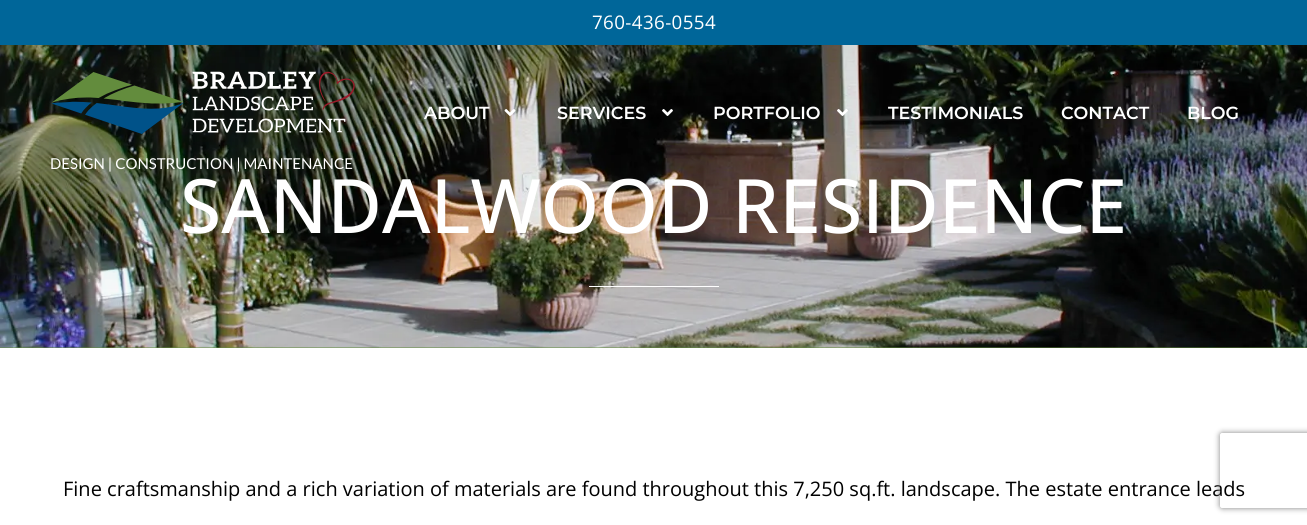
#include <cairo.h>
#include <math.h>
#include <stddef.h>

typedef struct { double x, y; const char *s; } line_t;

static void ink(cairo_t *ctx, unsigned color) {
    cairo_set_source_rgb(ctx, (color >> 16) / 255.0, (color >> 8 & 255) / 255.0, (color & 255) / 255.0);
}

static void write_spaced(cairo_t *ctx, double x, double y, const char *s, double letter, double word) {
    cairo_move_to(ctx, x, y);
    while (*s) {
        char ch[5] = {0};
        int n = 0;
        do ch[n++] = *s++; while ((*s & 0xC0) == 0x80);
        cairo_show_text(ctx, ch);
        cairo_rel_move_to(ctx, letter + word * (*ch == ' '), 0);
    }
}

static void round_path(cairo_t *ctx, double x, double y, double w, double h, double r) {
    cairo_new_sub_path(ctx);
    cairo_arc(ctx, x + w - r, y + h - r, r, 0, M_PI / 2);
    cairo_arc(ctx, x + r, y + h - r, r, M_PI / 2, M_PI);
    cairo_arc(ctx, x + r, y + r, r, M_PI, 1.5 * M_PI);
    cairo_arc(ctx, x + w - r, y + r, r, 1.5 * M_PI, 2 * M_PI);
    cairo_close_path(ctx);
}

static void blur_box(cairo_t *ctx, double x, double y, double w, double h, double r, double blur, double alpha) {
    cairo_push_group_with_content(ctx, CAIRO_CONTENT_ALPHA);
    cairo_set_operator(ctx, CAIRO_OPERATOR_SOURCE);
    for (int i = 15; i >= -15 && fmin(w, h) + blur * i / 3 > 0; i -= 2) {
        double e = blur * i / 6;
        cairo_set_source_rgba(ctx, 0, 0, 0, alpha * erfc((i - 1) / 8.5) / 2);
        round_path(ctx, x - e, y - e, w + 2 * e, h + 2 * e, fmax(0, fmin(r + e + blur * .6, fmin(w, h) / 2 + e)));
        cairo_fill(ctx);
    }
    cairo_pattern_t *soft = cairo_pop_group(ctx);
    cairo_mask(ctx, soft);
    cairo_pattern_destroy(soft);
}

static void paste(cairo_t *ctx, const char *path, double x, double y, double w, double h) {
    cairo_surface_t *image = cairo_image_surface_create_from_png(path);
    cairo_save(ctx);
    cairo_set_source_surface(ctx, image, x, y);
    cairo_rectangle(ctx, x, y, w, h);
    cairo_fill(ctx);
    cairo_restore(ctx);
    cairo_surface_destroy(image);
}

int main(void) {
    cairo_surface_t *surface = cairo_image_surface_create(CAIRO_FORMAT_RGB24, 1307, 525);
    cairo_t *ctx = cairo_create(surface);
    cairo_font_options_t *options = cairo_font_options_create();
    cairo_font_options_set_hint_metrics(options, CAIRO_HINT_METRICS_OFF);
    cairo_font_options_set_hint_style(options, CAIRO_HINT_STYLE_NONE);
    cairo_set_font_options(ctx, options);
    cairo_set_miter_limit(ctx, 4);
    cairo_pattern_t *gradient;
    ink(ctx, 0xFFFFFF);
    cairo_paint(ctx);
    ink(ctx, 0x006699);
    cairo_rectangle(ctx, 0, 0, 1307, 45);
    cairo_fill(ctx);
    cairo_select_font_face(ctx, "Open Sans", CAIRO_FONT_SLANT_NORMAL, CAIRO_FONT_WEIGHT_NORMAL);
    cairo_set_font_size(ctx, 18.75);
    ink(ctx, 0xFFFFFF);
    write_spaced(ctx, 592, 29, "760-436-0554", 0.4, 0);
    ink(ctx, 0x638D3D);
    cairo_rectangle(ctx, 0, 347, 1307, 1);
    cairo_fill(ctx);
    paste(ctx, "media/5.png", 0, 45, 1307, 303);
    gradient = cairo_pattern_create_linear(654, 1.2, 654, 348);
    cairo_pattern_add_color_stop_rgba(gradient, 0, 0, 0, 0, 0.15);
    cairo_pattern_add_color_stop_rgba(gradient, 1, 0, 0, 0, 0);
    cairo_set_source(ctx, gradient);
    cairo_pattern_destroy(gradient);
    cairo_rectangle(ctx, 0, 45, 1307, 253);
    cairo_fill(ctx);
    cairo_select_font_face(ctx, "Montserrat SemiBold", CAIRO_FONT_SLANT_NORMAL, CAIRO_FONT_WEIGHT_NORMAL);
    cairo_set_font_size(ctx, 17.5);
    ink(ctx, 0xFFFFFF);
    cairo_move_to(ctx, 424, 119);
    cairo_show_text(ctx, "ABOUT");
    paste(ctx, "media/1.png", 504, 109, 12, 7);
    cairo_move_to(ctx, 557, 119);
    cairo_show_text(ctx, "SERVICES");
    paste(ctx, "media/2.png", 662, 109, 11, 7);
    cairo_move_to(ctx, 713, 119);
    cairo_show_text(ctx, "PORTFOLIO");
    paste(ctx, "media/3.png", 837, 109, 11, 7);
    {
        static const line_t items[] = {
            {888, 119, "TESTIMONIALS"},
            {1061, 119, "CONTACT"},
            {1187, 119, "BLOG"},
        };
        for (size_t i = 0; i < sizeof items / sizeof *items; i++) {
            cairo_move_to(ctx, items[i].x, items[i].y);
            cairo_show_text(ctx, items[i].s);
        }
    }
    paste(ctx, "media/4.png", 51, 71, 304, 63);
    cairo_select_font_face(ctx, "Lato", CAIRO_FONT_SLANT_NORMAL, CAIRO_FONT_WEIGHT_NORMAL);
    cairo_set_font_size(ctx, 15);
    cairo_move_to(ctx, 50, 169);
    cairo_show_text(ctx, "DESIGN | CONSTRUCTION | MAINTENANCE");
    cairo_select_font_face(ctx, "Open Sans Medium", CAIRO_FONT_SLANT_NORMAL, CAIRO_FONT_WEIGHT_NORMAL);
    cairo_set_font_size(ctx, 75);
    cairo_move_to(ctx, 180, 233);
    cairo_show_text(ctx, "SANDALWOOD RESIDENCE");
    cairo_rectangle(ctx, 589, 286, 130, 1);
    cairo_fill(ctx);
    cairo_select_font_face(ctx, "Open Sans", CAIRO_FONT_SLANT_NORMAL, CAIRO_FONT_WEIGHT_NORMAL);
    cairo_set_font_size(ctx, 20);
    ink(ctx, 0x000000);
    cairo_move_to(ctx, 63, 496);
    cairo_show_text(ctx, "Fine craftsmanship and a rich variation of materials are found throughout this 7,250 sq.ft. landscape. The estate entrance leads");
    cairo_save(ctx);
    cairo_set_fill_rule(ctx, CAIRO_FILL_RULE_EVEN_ODD);
    cairo_new_path(ctx);
    cairo_move_to(ctx, 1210, 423);
    cairo_line_to(ctx, 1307, 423);
    cairo_line_to(ctx, 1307, 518);
    cairo_line_to(ctx, 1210, 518);
    cairo_close_path(ctx);
    cairo_move_to(ctx, 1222.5, 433);
    cairo_line_to(ctx, 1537.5, 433);
    cairo_curve_to(ctx, 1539, 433, 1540, 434, 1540, 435.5);
    cairo_line_to(ctx, 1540, 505.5);
    cairo_curve_to(ctx, 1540, 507, 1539, 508, 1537.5, 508);
    cairo_line_to(ctx, 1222.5, 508);
    cairo_curve_to(ctx, 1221, 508, 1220, 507, 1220, 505.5);
    cairo_line_to(ctx, 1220, 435.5);
    cairo_curve_to(ctx, 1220, 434, 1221, 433, 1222.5, 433);
    cairo_close_path(ctx);
    cairo_clip(ctx);
    ink(ctx, 0x808080);
    blur_box(ctx, 1220, 433, 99, 75, 2.5, 3, 1);
    cairo_restore(ctx);
    cairo_surface_write_to_png(surface, "image.png");
    cairo_font_options_destroy(options);
    cairo_destroy(ctx);
    cairo_surface_destroy(surface);
    return 0;
}
